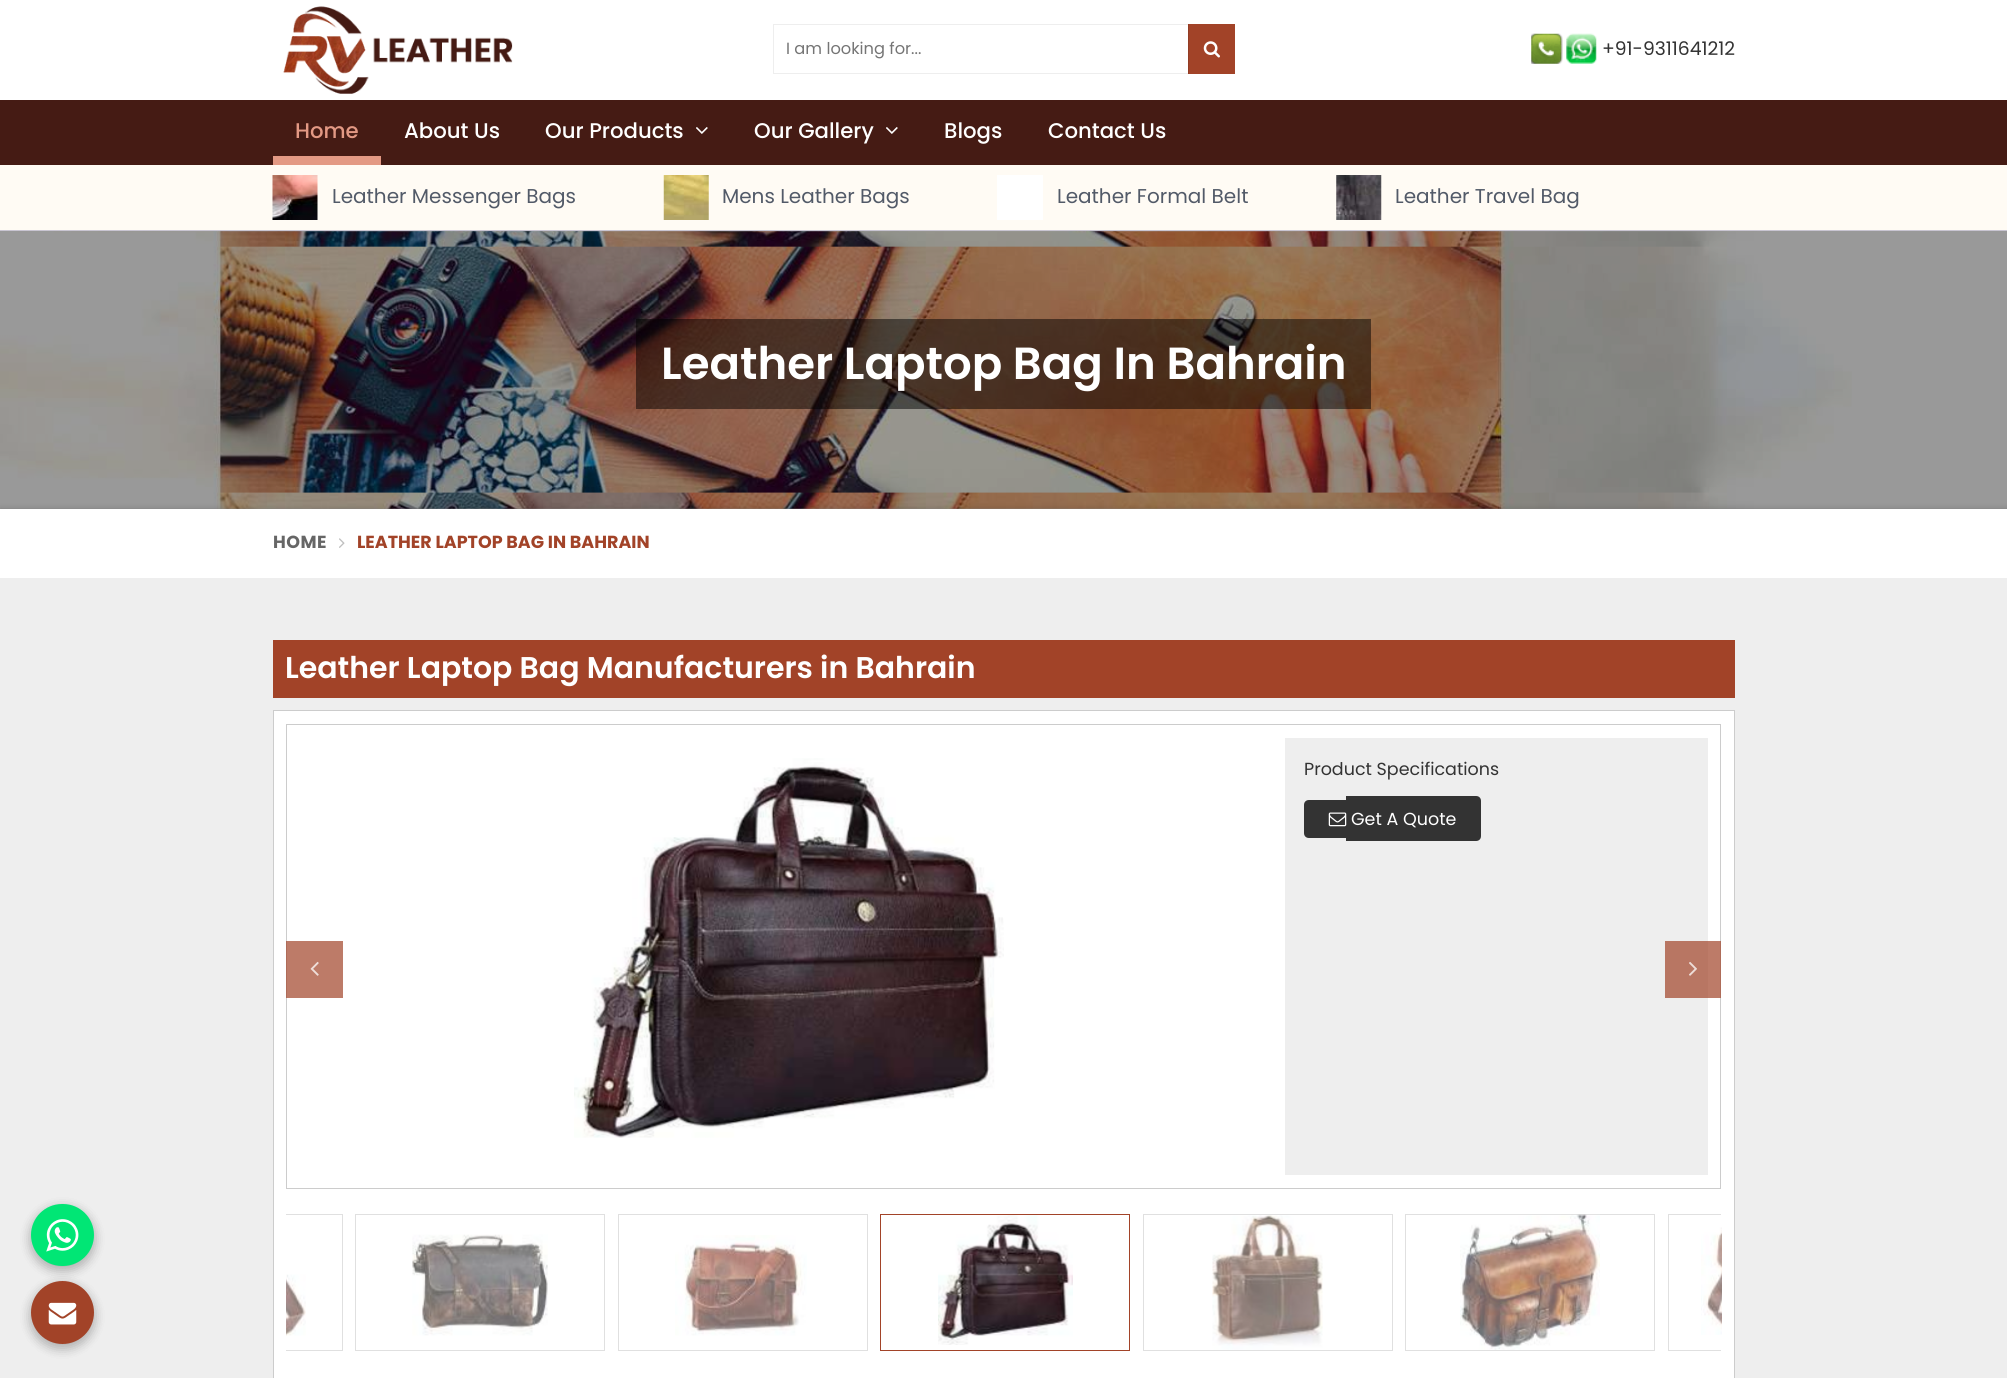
#include <cairo.h>
#include <math.h>
#include <stddef.h>


static void ink(cairo_t *ctx, unsigned color) {
    cairo_set_source_rgb(ctx, (color >> 16) / 255.0, (color >> 8 & 255) / 255.0, (color & 255) / 255.0);
}

static void write_spaced(cairo_t *ctx, double x, double y, const char *s, double letter, double word) {
    cairo_move_to(ctx, x, y);
    while (*s) {
        char ch[5] = {0};
        int n = 0;
        do ch[n++] = *s++; while ((*s & 0xC0) == 0x80);
        cairo_show_text(ctx, ch);
        cairo_rel_move_to(ctx, letter + word * (*ch == ' '), 0);
    }
}

static void round_path(cairo_t *ctx, double x, double y, double w, double h, double r) {
    cairo_new_sub_path(ctx);
    cairo_arc(ctx, x + w - r, y + h - r, r, 0, M_PI / 2);
    cairo_arc(ctx, x + r, y + h - r, r, M_PI / 2, M_PI);
    cairo_arc(ctx, x + r, y + r, r, M_PI, 1.5 * M_PI);
    cairo_arc(ctx, x + w - r, y + r, r, 1.5 * M_PI, 2 * M_PI);
    cairo_close_path(ctx);
}

static void blur_box(cairo_t *ctx, double x, double y, double w, double h, double r, double blur, double alpha) {
    cairo_push_group_with_content(ctx, CAIRO_CONTENT_ALPHA);
    cairo_set_operator(ctx, CAIRO_OPERATOR_SOURCE);
    for (int i = 15; i >= -15 && fmin(w, h) + blur * i / 3 > 0; i -= 2) {
        double e = blur * i / 6;
        cairo_set_source_rgba(ctx, 0, 0, 0, alpha * erfc((i - 1) / 8.5) / 2);
        round_path(ctx, x - e, y - e, w + 2 * e, h + 2 * e, fmax(0, fmin(r + e + blur * .6, fmin(w, h) / 2 + e)));
        cairo_fill(ctx);
    }
    cairo_pattern_t *soft = cairo_pop_group(ctx);
    cairo_mask(ctx, soft);
    cairo_pattern_destroy(soft);
}

static void paste(cairo_t *ctx, const char *path, double x, double y, double w, double h) {
    cairo_surface_t *image = cairo_image_surface_create_from_png(path);
    cairo_save(ctx);
    cairo_set_source_surface(ctx, image, x, y);
    cairo_rectangle(ctx, x, y, w, h);
    cairo_fill(ctx);
    cairo_restore(ctx);
    cairo_surface_destroy(image);
}

int main(void) {
    cairo_surface_t *surface = cairo_image_surface_create(CAIRO_FORMAT_RGB24, 2007, 1378);
    cairo_t *ctx = cairo_create(surface);
    cairo_font_options_t *options = cairo_font_options_create();
    cairo_font_options_set_hint_metrics(options, CAIRO_HINT_METRICS_OFF);
    cairo_font_options_set_hint_style(options, CAIRO_HINT_STYLE_NONE);
    cairo_set_font_options(ctx, options);
    cairo_set_miter_limit(ctx, 4);
    ink(ctx, 0x999999);
    cairo_paint(ctx);
    ink(ctx, 0x451B14);
    cairo_rectangle(ctx, 0, 100, 2007, 65);
    cairo_fill(ctx);
    ink(ctx, 0xFFFFFF);
    cairo_rectangle(ctx, 0, 0, 2007, 100);
    cairo_fill(ctx);
    paste(ctx, "media/1.png", 283, 6, 230, 88);
    cairo_rectangle(ctx, 773.5, 24.5, 461, 49);
    ink(ctx, 0xEEEEEE);
    cairo_set_line_width(ctx, 1);
    cairo_stroke(ctx);
    cairo_select_font_face(ctx, "Poppins", CAIRO_FONT_SLANT_NORMAL, CAIRO_FONT_WEIGHT_NORMAL);
    cairo_set_font_size(ctx, 16.25);
    ink(ctx, 0x757575);
    cairo_move_to(ctx, 786, 54);
    cairo_show_text(ctx, "I am looking for...");
    ink(ctx, 0xA24328);
    cairo_rectangle(ctx, 1189, 24, 46, 50);
    cairo_fill(ctx);
    ink(ctx, 0x923C24);
    cairo_rectangle(ctx, 1188, 24, 1, 50);
    cairo_fill(ctx);
    paste(ctx, "media/2.png", 1203, 41, 17, 17);
    paste(ctx, "media/3.png", 1531, 33, 66, 31);
    cairo_set_font_size(ctx, 18.75);
    ink(ctx, 0x333333);
    cairo_move_to(ctx, 1602, 55);
    cairo_show_text(ctx, "+91-9311641212");
    cairo_select_font_face(ctx, "Poppins Medium", CAIRO_FONT_SLANT_NORMAL, CAIRO_FONT_WEIGHT_NORMAL);
    cairo_set_font_size(ctx, 21.25);
    ink(ctx, 0xE39984);
    cairo_move_to(ctx, 295, 138);
    cairo_show_text(ctx, "Home");
    cairo_rectangle(ctx, 273, 156, 108, 9);
    cairo_fill(ctx);
    ink(ctx, 0xFFFFFF);
    cairo_move_to(ctx, 404, 138);
    cairo_show_text(ctx, "About Us");
    cairo_move_to(ctx, 545, 138);
    cairo_show_text(ctx, "Our Products");
    paste(ctx, "media/4.png", 696, 127, 12, 7);
    cairo_move_to(ctx, 754, 138);
    cairo_show_text(ctx, "Our Gallery");
    paste(ctx, "media/4.png", 886, 127, 12, 7);
    cairo_move_to(ctx, 944, 138);
    cairo_show_text(ctx, "Blogs");
    cairo_move_to(ctx, 1048, 138);
    cairo_show_text(ctx, "Contact Us");
    ink(ctx, 0xFFFBF4);
    cairo_rectangle(ctx, 0, 165, 2007, 65);
    cairo_fill(ctx);
    ink(ctx, 0xC9C5D2);
    cairo_rectangle(ctx, 0, 230, 2007, 1);
    cairo_fill(ctx);
    paste(ctx, "media/5.png", 272, 175, 46, 45);
    cairo_select_font_face(ctx, "Poppins", CAIRO_FONT_SLANT_NORMAL, CAIRO_FONT_WEIGHT_NORMAL);
    cairo_set_font_size(ctx, 20);
    ink(ctx, 0x525A68);
    cairo_move_to(ctx, 332, 203);
    cairo_show_text(ctx, "Leather Messenger Bags");
    paste(ctx, "media/6.png", 663, 175, 46, 45);
    cairo_move_to(ctx, 722, 203);
    cairo_show_text(ctx, "Mens Leather Bags");
    ink(ctx, 0xFFFFFF);
    cairo_rectangle(ctx, 997, 175, 46, 45);
    cairo_fill(ctx);
    ink(ctx, 0x525A68);
    cairo_move_to(ctx, 1057, 203);
    cairo_show_text(ctx, "Leather Formal Belt");
    paste(ctx, "media/7.png", 1336, 175, 46, 45);
    cairo_move_to(ctx, 1395, 203);
    cairo_show_text(ctx, "Leather Travel Bag");
    paste(ctx, "media/8.png", 0, 231, 1852, 278);
    cairo_set_source_rgba(ctx, 0, 0, 0, 0.5);
    cairo_rectangle(ctx, 636, 319, 735, 90);
    cairo_fill(ctx);
    cairo_select_font_face(ctx, "Poppins SemiBold", CAIRO_FONT_SLANT_NORMAL, CAIRO_FONT_WEIGHT_NORMAL);
    cairo_set_font_size(ctx, 45);
    ink(ctx, 0xFFFFFF);
    cairo_move_to(ctx, 661, 379);
    cairo_show_text(ctx, "Leather Laptop Bag In Bahrain");
    ink(ctx, 0x000000);
    blur_box(ctx, 0, 509, 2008, 69, 0, 3, 0.2);
    ink(ctx, 0xFFFFFF);
    cairo_rectangle(ctx, 0, 509, 2007, 69);
    cairo_fill(ctx);
    cairo_select_font_face(ctx, "Poppins", CAIRO_FONT_SLANT_NORMAL, CAIRO_FONT_WEIGHT_BOLD);
    cairo_set_font_size(ctx, 17.5);
    ink(ctx, 0x666666);
    write_spaced(ctx, 273, 548, "HOME", 0.5, 0);
    paste(ctx, "media/9.png", 339, 538, 6, 10);
    ink(ctx, 0xA24328);
    cairo_move_to(ctx, 357, 548);
    cairo_show_text(ctx, "LEATHER LAPTOP BAG IN BAHRAIN");
    ink(ctx, 0xEEEEEE);
    cairo_rectangle(ctx, 0, 578, 2007, 800);
    cairo_fill(ctx);
    ink(ctx, 0xA24328);
    cairo_rectangle(ctx, 273, 640, 1462, 58);
    cairo_fill(ctx);
    cairo_select_font_face(ctx, "Poppins SemiBold", CAIRO_FONT_SLANT_NORMAL, CAIRO_FONT_WEIGHT_NORMAL);
    cairo_set_font_size(ctx, 30);
    ink(ctx, 0xFFFFFF);
    cairo_move_to(ctx, 285, 678);
    cairo_show_text(ctx, "Leather Laptop Bag Manufacturers in Bahrain");
    cairo_rectangle(ctx, 273.5, 710.5, 1461, 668);
    cairo_fill_preserve(ctx);
    ink(ctx, 0xCCCCCC);
    cairo_stroke(ctx);
    cairo_rectangle(ctx, 286.5, 724.5, 1434, 464);
    cairo_stroke(ctx);
    paste(ctx, "media/10.png", 574, 758, 430, 380);
    ink(ctx, 0xEEEEEE);
    cairo_rectangle(ctx, 1285, 738, 423, 437);
    cairo_fill(ctx);
    cairo_select_font_face(ctx, "Poppins", CAIRO_FONT_SLANT_NORMAL, CAIRO_FONT_WEIGHT_NORMAL);
    cairo_set_font_size(ctx, 17.5);
    ink(ctx, 0x333333);
    cairo_move_to(ctx, 1304, 775);
    cairo_show_text(ctx, "Product Specifications");
    cairo_new_path(ctx);
    cairo_move_to(ctx, 1309, 800);
    cairo_line_to(ctx, 1346, 800);
    cairo_line_to(ctx, 1346, 838);
    cairo_line_to(ctx, 1309, 838);
    cairo_curve_to(ctx, 1306, 838, 1304, 836, 1304, 833);
    cairo_line_to(ctx, 1304, 805);
    cairo_curve_to(ctx, 1304, 802, 1306, 800, 1309, 800);
    cairo_close_path(ctx);
    cairo_fill(ctx);
    cairo_new_path(ctx);
    cairo_move_to(ctx, 1346, 796);
    cairo_line_to(ctx, 1476, 796);
    cairo_curve_to(ctx, 1479, 796, 1481, 798, 1481, 801);
    cairo_line_to(ctx, 1481, 836);
    cairo_curve_to(ctx, 1481, 839, 1479, 841, 1476, 841);
    cairo_line_to(ctx, 1346, 841);
    cairo_close_path(ctx);
    cairo_fill(ctx);
    paste(ctx, "media/11.png", 1328, 812, 19, 15);
    ink(ctx, 0xFFFFFF);
    cairo_move_to(ctx, 1351, 825);
    cairo_show_text(ctx, "Get A Quote");
    cairo_set_source_rgba(ctx, 0.635, 0.263, 0.157, 0.7);
    cairo_rectangle(ctx, 286, 941, 57, 57);
    cairo_fill(ctx);
    paste(ctx, "media/12.png", 310, 961, 9, 15);
    cairo_rectangle(ctx, 1665, 941, 56, 57);
    cairo_fill(ctx);
    paste(ctx, "media/13.png", 1689, 962, 8, 14);
    cairo_save(ctx);
    cairo_rectangle(ctx, 286, 1214, 1435, 162);
    cairo_clip(ctx);
    cairo_rectangle(ctx, 93.5, 1214.5, 249, 136);
    ink(ctx, 0xE0E0E0);
    cairo_stroke(ctx);
    cairo_restore(ctx);
    paste(ctx, "media/14.png", 286, 1274, 20, 62);
    cairo_rectangle(ctx, 355.5, 1214.5, 249, 136);
    ink(ctx, 0xE0E0E0);
    cairo_stroke(ctx);
    paste(ctx, "media/15.png", 412, 1234, 136, 102);
    cairo_rectangle(ctx, 618.5, 1214.5, 249, 136);
    cairo_stroke(ctx);
    paste(ctx, "media/16.png", 675, 1235, 132, 101);
    cairo_rectangle(ctx, 880.5, 1214.5, 249, 136);
    ink(ctx, 0xA24328);
    cairo_stroke(ctx);
    paste(ctx, "media/17.png", 938, 1215, 135, 130);
    cairo_rectangle(ctx, 1143.5, 1214.5, 249, 136);
    ink(ctx, 0xE0E0E0);
    cairo_stroke(ctx);
    paste(ctx, "media/18.png", 1212, 1215, 111, 135);
    cairo_rectangle(ctx, 1405.5, 1214.5, 249, 136);
    cairo_stroke(ctx);
    paste(ctx, "media/19.png", 1460, 1214, 140, 136);
    cairo_save(ctx);
    cairo_rectangle(ctx, 286, 1214, 1435, 162);
    cairo_clip(ctx);
    cairo_rectangle(ctx, 1668.5, 1214.5, 249, 136);
    cairo_stroke(ctx);
    cairo_restore(ctx);
    paste(ctx, "media/20.png", 1701, 1227, 21, 108);
    ink(ctx, 0x000000);
    blur_box(ctx, 31, 1208, 63, 62, 31, 6, 0.16);
    blur_box(ctx, 31, 1208, 63, 62, 31, 6, 0.16);
    ink(ctx, 0x01E675);
    round_path(ctx, 31, 1204, 63, 62, 31);
    cairo_fill(ctx);
    paste(ctx, "media/21.png", 46, 1219, 33, 33);
    ink(ctx, 0x000000);
    blur_box(ctx, 31, 1285, 63, 63, 31.5, 6, 0.16);
    blur_box(ctx, 31, 1285, 63, 63, 31.5, 6, 0.16);
    ink(ctx, 0xA24328);
    cairo_arc(ctx, 62.5, 1312.5, 31.5, 0, 2 * M_PI);
    cairo_fill(ctx);
    paste(ctx, "media/22.png", 48, 1302, 29, 23);
    cairo_surface_write_to_png(surface, "image.png");
    cairo_font_options_destroy(options);
    cairo_destroy(ctx);
    cairo_surface_destroy(surface);
    return 0;
}
